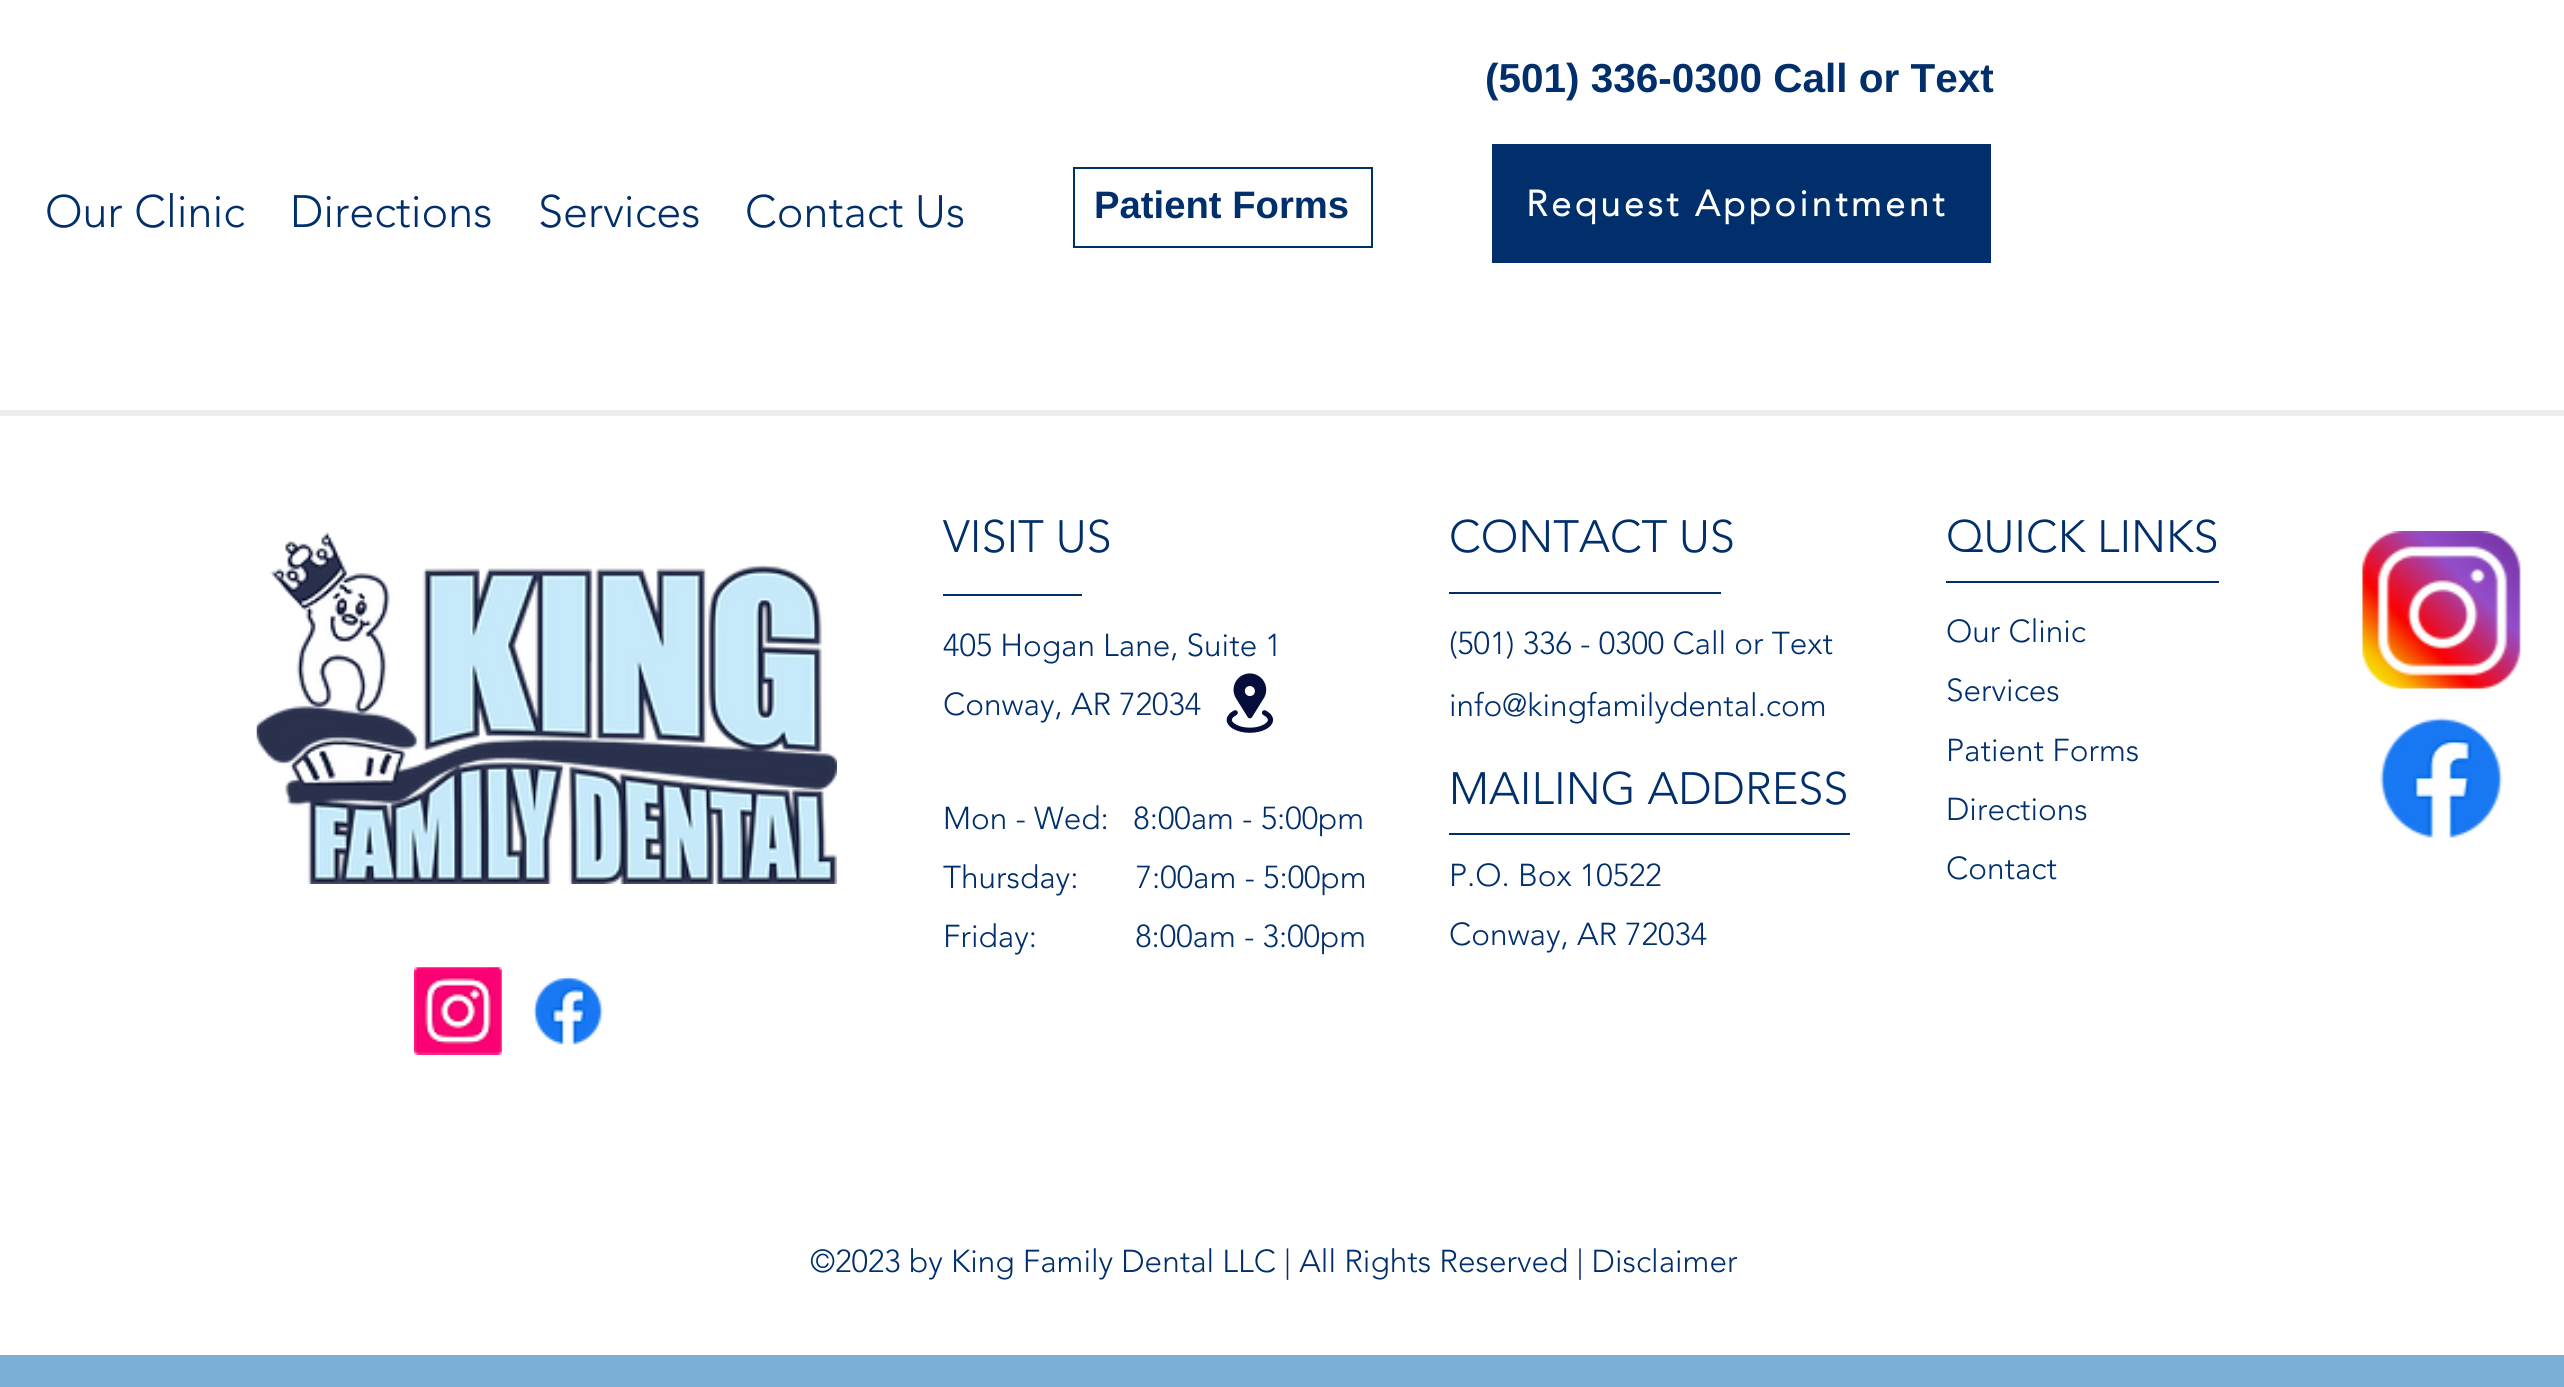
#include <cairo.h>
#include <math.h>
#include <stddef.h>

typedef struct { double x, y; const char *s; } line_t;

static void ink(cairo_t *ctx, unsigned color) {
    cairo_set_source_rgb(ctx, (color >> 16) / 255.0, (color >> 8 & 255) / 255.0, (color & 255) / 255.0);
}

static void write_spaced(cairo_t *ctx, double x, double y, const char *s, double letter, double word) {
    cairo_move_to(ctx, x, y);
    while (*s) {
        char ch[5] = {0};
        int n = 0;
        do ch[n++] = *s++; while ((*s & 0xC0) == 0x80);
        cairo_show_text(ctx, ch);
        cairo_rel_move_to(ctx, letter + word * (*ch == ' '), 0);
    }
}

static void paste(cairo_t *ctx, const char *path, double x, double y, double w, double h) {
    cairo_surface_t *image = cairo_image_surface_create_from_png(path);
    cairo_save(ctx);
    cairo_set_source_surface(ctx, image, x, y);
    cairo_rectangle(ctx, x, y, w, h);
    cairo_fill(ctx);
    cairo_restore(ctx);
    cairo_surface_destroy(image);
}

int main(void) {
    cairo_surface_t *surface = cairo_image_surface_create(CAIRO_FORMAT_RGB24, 2564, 1387);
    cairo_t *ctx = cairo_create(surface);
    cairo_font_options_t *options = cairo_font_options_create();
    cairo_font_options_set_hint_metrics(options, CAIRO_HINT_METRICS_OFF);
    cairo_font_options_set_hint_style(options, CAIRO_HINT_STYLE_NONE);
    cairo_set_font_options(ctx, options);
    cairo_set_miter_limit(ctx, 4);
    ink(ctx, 0xFFFFFF);
    cairo_paint(ctx);
    cairo_select_font_face(ctx, "Liberation Sans", CAIRO_FONT_SLANT_NORMAL, CAIRO_FONT_WEIGHT_BOLD);
    cairo_set_font_size(ctx, 40.5);
    ink(ctx, 0x002F6C);
    cairo_move_to(ctx, 1485, 92);
    cairo_show_text(ctx, "(501) 336-0300 Call or Text");
    cairo_select_font_face(ctx, "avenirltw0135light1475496 Light", CAIRO_FONT_SLANT_NORMAL, CAIRO_FONT_WEIGHT_NORMAL);
    cairo_set_font_size(ctx, 45);
    {
        static const line_t items[] = {
            {45, 227, "Our Clinic"},
            {290, 227, "Directions"},
            {538, 227, "Services"},
            {745, 227, "Contact Us"},
        };
        for (size_t i = 0; i < sizeof items / sizeof *items; i++) {
            cairo_move_to(ctx, items[i].x, items[i].y);
            cairo_show_text(ctx, items[i].s);
        }
    }
    cairo_rectangle(ctx, 1074, 168, 298, 79);
    cairo_stroke(ctx);
    cairo_select_font_face(ctx, "Liberation Sans", CAIRO_FONT_SLANT_NORMAL, CAIRO_FONT_WEIGHT_BOLD);
    cairo_set_font_size(ctx, 38.25);
    cairo_move_to(ctx, 1094, 218);
    cairo_show_text(ctx, "Patient Forms");
    cairo_rectangle(ctx, 1492, 144, 499, 119);
    cairo_fill(ctx);
    cairo_select_font_face(ctx, "avenirltw0135light1475496", CAIRO_FONT_SLANT_NORMAL, CAIRO_FONT_WEIGHT_BOLD);
    cairo_set_font_size(ctx, 36);
    ink(ctx, 0xFFFFFF);
    write_spaced(ctx, 1526, 216, "Request Appointment", 3.6, 0);
    ink(ctx, 0xEDEDED);
    cairo_rectangle(ctx, 0, 410, 2564, 6);
    cairo_fill(ctx);
    paste(ctx, "media/1.png", 256, 532, 581, 352);
    cairo_select_font_face(ctx, "avenirltw0135light1475496 Light", CAIRO_FONT_SLANT_NORMAL, CAIRO_FONT_WEIGHT_NORMAL);
    cairo_set_font_size(ctx, 45);
    ink(ctx, 0x002F6C);
    cairo_move_to(ctx, 943, 552);
    cairo_show_text(ctx, "VISIT US");
    cairo_move_to(ctx, 1449, 552);
    cairo_show_text(ctx, "CONTACT US");
    cairo_rectangle(ctx, 1449, 592, 272, 2);
    cairo_fill(ctx);
    cairo_set_font_size(ctx, 31.5);
    cairo_move_to(ctx, 1449, 654);
    cairo_show_text(ctx, "(501) 336 - 0300 Call or Text");
    cairo_move_to(ctx, 1449, 716);
    cairo_show_text(ctx, "info@kingfamilydental.com");
    cairo_set_font_size(ctx, 45);
    cairo_move_to(ctx, 1946, 552);
    cairo_show_text(ctx, "QUICK LINKS");
    cairo_rectangle(ctx, 1946, 581, 273, 2);
    cairo_fill(ctx);
    cairo_set_font_size(ctx, 31.5);
    {
        static const line_t items[] = {
            {1946, 642, "Our Clinic"},
            {1946, 701, "Services"},
            {1946, 761, "Patient Forms"},
            {1946, 820, "Directions"},
            {1946, 879, "Contact"},
        };
        for (size_t i = 0; i < sizeof items / sizeof *items; i++) {
            cairo_move_to(ctx, items[i].x, items[i].y);
            cairo_show_text(ctx, items[i].s);
        }
    }
    cairo_rectangle(ctx, 943, 594, 139, 2);
    cairo_fill(ctx);
    cairo_move_to(ctx, 943, 656);
    cairo_show_text(ctx, "405 Hogan Lane, Suite 1");
    cairo_move_to(ctx, 943, 715);
    cairo_show_text(ctx, "Conway, AR 72034");
    paste(ctx, "media/2.png", 1226, 673, 48, 60);
    {
        static const line_t items[] = {
            {943, 829, "Mon - Wed:   8:00am - 5:00pm"},
            {943, 888, "Thursday:       7:00am - 5:00pm"},
            {943, 947, "Friday:            8:00am - 3:00pm"},
        };
        for (size_t i = 0; i < sizeof items / sizeof *items; i++) {
            cairo_move_to(ctx, items[i].x, items[i].y);
            cairo_show_text(ctx, items[i].s);
        }
    }
    cairo_set_font_size(ctx, 45);
    cairo_move_to(ctx, 1449, 804);
    cairo_show_text(ctx, "MAILING ADDRESS");
    cairo_rectangle(ctx, 1449, 833, 401, 2);
    cairo_fill(ctx);
    cairo_set_font_size(ctx, 31.5);
    cairo_move_to(ctx, 1449, 886);
    cairo_show_text(ctx, "P.O. Box 10522");
    cairo_move_to(ctx, 1449, 945);
    cairo_show_text(ctx, "Conway, AR 72034");
    paste(ctx, "media/3.png", 414, 967, 88, 88);
    paste(ctx, "media/4.png", 533, 976, 71, 69);
    cairo_move_to(ctx, 810, 1272);
    cairo_show_text(ctx, "©2023 by King Family Dental LLC | All Rights Reserved | Disclaimer");
    ink(ctx, 0x7BAFD4);
    cairo_rectangle(ctx, 0, 1355, 2564, 32);
    cairo_fill(ctx);
    paste(ctx, "media/5.png", 2362, 531, 159, 158);
    paste(ctx, "media/6.png", 2379, 717, 124, 121);
    cairo_surface_write_to_png(surface, "image.png");
    cairo_font_options_destroy(options);
    cairo_destroy(ctx);
    cairo_surface_destroy(surface);
    return 0;
}
